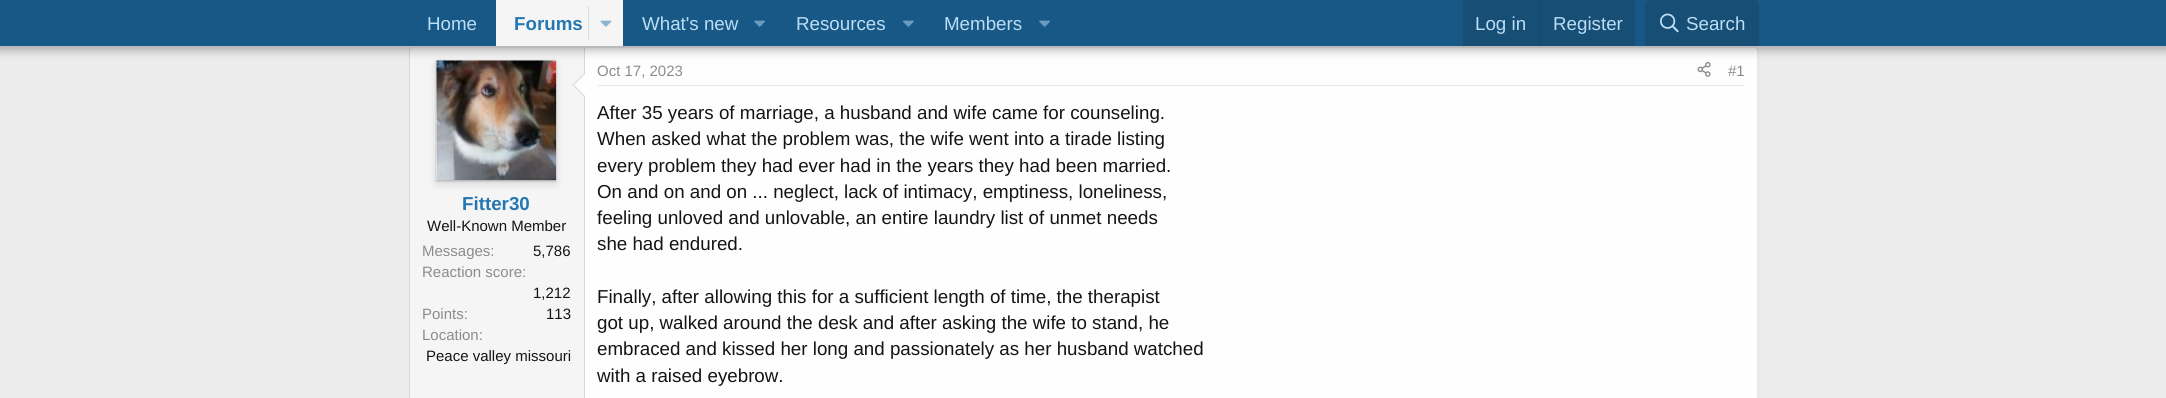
#include <cairo.h>
#include <math.h>
#include <stddef.h>

typedef struct { double x, y; const char *s; } line_t;

static void ink(cairo_t *ctx, unsigned color) {
    cairo_set_source_rgb(ctx, (color >> 16) / 255.0, (color >> 8 & 255) / 255.0, (color & 255) / 255.0);
}

static void round_path(cairo_t *ctx, double x, double y, double w, double h, double r) {
    cairo_new_sub_path(ctx);
    cairo_arc(ctx, x + w - r, y + h - r, r, 0, M_PI / 2);
    cairo_arc(ctx, x + r, y + h - r, r, M_PI / 2, M_PI);
    cairo_arc(ctx, x + r, y + r, r, M_PI, 1.5 * M_PI);
    cairo_arc(ctx, x + w - r, y + r, r, 1.5 * M_PI, 2 * M_PI);
    cairo_close_path(ctx);
}

static void blur_box(cairo_t *ctx, double x, double y, double w, double h, double r, double blur, double alpha) {
    cairo_push_group_with_content(ctx, CAIRO_CONTENT_ALPHA);
    cairo_set_operator(ctx, CAIRO_OPERATOR_SOURCE);
    for (int i = 15; i >= -15 && fmin(w, h) + blur * i / 3 > 0; i -= 2) {
        double e = blur * i / 6;
        cairo_set_source_rgba(ctx, 0, 0, 0, alpha * erfc((i - 1) / 8.5) / 2);
        round_path(ctx, x - e, y - e, w + 2 * e, h + 2 * e, fmax(0, fmin(r + e + blur * .6, fmin(w, h) / 2 + e)));
        cairo_fill(ctx);
    }
    cairo_pattern_t *soft = cairo_pop_group(ctx);
    cairo_mask(ctx, soft);
    cairo_pattern_destroy(soft);
}

static void paste(cairo_t *ctx, const char *path, double x, double y, double w, double h) {
    cairo_surface_t *image = cairo_image_surface_create_from_png(path);
    cairo_save(ctx);
    cairo_set_source_surface(ctx, image, x, y);
    cairo_rectangle(ctx, x, y, w, h);
    cairo_fill(ctx);
    cairo_restore(ctx);
    cairo_surface_destroy(image);
}

int main(void) {
    cairo_surface_t *surface = cairo_image_surface_create(CAIRO_FORMAT_RGB24, 2166, 398);
    cairo_t *ctx = cairo_create(surface);
    cairo_font_options_t *options = cairo_font_options_create();
    cairo_font_options_set_hint_metrics(options, CAIRO_HINT_METRICS_OFF);
    cairo_font_options_set_hint_style(options, CAIRO_HINT_STYLE_NONE);
    cairo_set_font_options(ctx, options);
    cairo_set_miter_limit(ctx, 4);
    ink(ctx, 0xECECEC);
    cairo_paint(ctx);
    ink(ctx, 0xFEFEFE);
    round_path(ctx, 409, 46, 1350, 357, 5);
    cairo_fill(ctx);
    cairo_new_path(ctx);
    cairo_move_to(ctx, 410.5, 48);
    cairo_line_to(ctx, 414, 47);
    cairo_line_to(ctx, 1754, 47);
    cairo_line_to(ctx, 1757, 48);
    ink(ctx, 0xDFDFDF);
    cairo_set_line_width(ctx, 1.2);
    cairo_stroke(ctx);
    cairo_new_path(ctx);
    cairo_move_to(ctx, 1757, 48);
    cairo_curve_to(ctx, 1757.5, 49, 1758, 50, 1758, 51);
    cairo_line_to(ctx, 1758, 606);
    cairo_curve_to(ctx, 1758, 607.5, 1757.5, 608.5, 1757, 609.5);
    ink(ctx, 0xD8D8D8);
    cairo_stroke(ctx);
    cairo_new_path(ctx);
    cairo_move_to(ctx, 410.5, 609.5);
    cairo_curve_to(ctx, 410, 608.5, 409.5, 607.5, 409.5, 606);
    cairo_line_to(ctx, 409.5, 51);
    cairo_curve_to(ctx, 409.5, 50, 410, 49, 410.5, 48);
    cairo_stroke(ctx);
    ink(ctx, 0xF5F5F5);
    cairo_new_path(ctx);
    cairo_move_to(ctx, 414, 48);
    cairo_line_to(ctx, 585, 48);
    cairo_line_to(ctx, 585, 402);
    cairo_line_to(ctx, 414, 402);
    cairo_curve_to(ctx, 412, 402, 410, 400, 410, 398);
    cairo_line_to(ctx, 410, 52);
    cairo_curve_to(ctx, 410, 50, 412, 48, 414, 48);
    cairo_close_path(ctx);
    cairo_fill(ctx);
    ink(ctx, 0xD8D8D8);
    cairo_rectangle(ctx, 584, 48, 1, 350);
    cairo_fill(ctx);
    ink(ctx, 0x000000);
    blur_box(ctx, 436, 61, 120, 120, 0, 1, 0.21);
    blur_box(ctx, 436, 64, 120, 120, 0, 4.5, 0.13);
    ink(ctx, 0xFEFEFE);
    cairo_rectangle(ctx, 436, 60, 120, 120);
    cairo_fill(ctx);
    paste(ctx, "media/5.png", 436, 60, 121, 121);
    paste(ctx, "media/6.png", 1697, 61, 14, 16);
    ink(ctx, 0x000000);
    blur_box(ctx, -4, -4, 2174, 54, 0, 5, 0.3);
    ink(ctx, 0x185886);
    cairo_rectangle(ctx, 0, 0, 2166, 46);
    cairo_fill(ctx);
    cairo_select_font_face(ctx, "Liberation Sans", CAIRO_FONT_SLANT_NORMAL, CAIRO_FONT_WEIGHT_NORMAL);
    cairo_set_font_size(ctx, 18.75);
    ink(ctx, 0xBCDEF5);
    cairo_move_to(ctx, 427, 30);
    cairo_show_text(ctx, "Home");
    ink(ctx, 0xF5F5F5);
    cairo_rectangle(ctx, 496, 0, 127, 46);
    cairo_fill(ctx);
    cairo_select_font_face(ctx, "Liberation Sans", CAIRO_FONT_SLANT_NORMAL, CAIRO_FONT_WEIGHT_BOLD);
    ink(ctx, 0x2577B1);
    cairo_move_to(ctx, 514, 30);
    cairo_show_text(ctx, "Forums");
    ink(ctx, 0xD1DFE9);
    cairo_rectangle(ctx, 588, 6, 1, 34);
    cairo_fill(ctx);
    paste(ctx, "media/1.png", 600, 20, 12, 7);
    cairo_select_font_face(ctx, "Liberation Sans", CAIRO_FONT_SLANT_NORMAL, CAIRO_FONT_WEIGHT_NORMAL);
    ink(ctx, 0xBCDEF5);
    cairo_move_to(ctx, 642, 30);
    cairo_show_text(ctx, "What's new");
    paste(ctx, "media/2.png", 754, 20, 11, 7);
    cairo_move_to(ctx, 796, 30);
    cairo_show_text(ctx, "Resources");
    paste(ctx, "media/3.png", 903, 20, 11, 7);
    cairo_move_to(ctx, 944, 30);
    cairo_show_text(ctx, "Members");
    paste(ctx, "media/2.png", 1039, 20, 11, 7);
    ink(ctx, 0x174E75);
    cairo_rectangle(ctx, 1463, 0, 172, 46);
    cairo_fill(ctx);
    ink(ctx, 0xBCDEF5);
    cairo_move_to(ctx, 1475, 30);
    cairo_show_text(ctx, "Log in");
    ink(ctx, 0x174566);
    cairo_rectangle(ctx, 1539, 0, 1, 46);
    cairo_fill(ctx);
    ink(ctx, 0xBCDEF5);
    cairo_move_to(ctx, 1553, 30);
    cairo_show_text(ctx, "Register");
    ink(ctx, 0x174E75);
    cairo_new_path(ctx);
    cairo_move_to(ctx, 1650, 0);
    cairo_line_to(ctx, 1754, 0);
    cairo_curve_to(ctx, 1757, 0, 1759, 2, 1759, 5);
    cairo_line_to(ctx, 1759, 46);
    cairo_line_to(ctx, 1645, 46);
    cairo_line_to(ctx, 1645, 5);
    cairo_curve_to(ctx, 1645, 2, 1647, 0, 1650, 0);
    cairo_close_path(ctx);
    cairo_fill(ctx);
    paste(ctx, "media/4.png", 1660, 13, 19, 20);
    ink(ctx, 0xBCDEF5);
    cairo_move_to(ctx, 1686, 30);
    cairo_show_text(ctx, "Search");
    ink(ctx, 0xD8D8D8);
    cairo_new_path(ctx);
    cairo_move_to(ctx, 585, 72.5);
    cairo_line_to(ctx, 585, 97.5);
    cairo_line_to(ctx, 572.5, 85);
    cairo_close_path(ctx);
    cairo_fill(ctx);
    ink(ctx, 0xFEFEFE);
    cairo_new_path(ctx);
    cairo_move_to(ctx, 585, 74);
    cairo_line_to(ctx, 585, 96);
    cairo_line_to(ctx, 574, 85);
    cairo_close_path(ctx);
    cairo_fill(ctx);
    cairo_select_font_face(ctx, "Liberation Sans", CAIRO_FONT_SLANT_NORMAL, CAIRO_FONT_WEIGHT_BOLD);
    ink(ctx, 0x2577B1);
    cairo_move_to(ctx, 462, 210);
    cairo_show_text(ctx, "Fitter30");
    cairo_select_font_face(ctx, "Liberation Sans", CAIRO_FONT_SLANT_NORMAL, CAIRO_FONT_WEIGHT_NORMAL);
    cairo_set_font_size(ctx, 15);
    ink(ctx, 0x141414);
    cairo_move_to(ctx, 427, 231);
    cairo_show_text(ctx, "Well-Known Member");
    ink(ctx, 0x8C8C8C);
    cairo_move_to(ctx, 422, 256);
    cairo_show_text(ctx, "Messages:");
    ink(ctx, 0x141414);
    cairo_move_to(ctx, 533, 256);
    cairo_show_text(ctx, "5,786");
    ink(ctx, 0x8C8C8C);
    cairo_move_to(ctx, 422, 277);
    cairo_show_text(ctx, "Reaction score:");
    ink(ctx, 0x141414);
    cairo_move_to(ctx, 533, 298);
    cairo_show_text(ctx, "1,212");
    ink(ctx, 0x8C8C8C);
    cairo_move_to(ctx, 422, 319);
    cairo_show_text(ctx, "Points:");
    ink(ctx, 0x141414);
    cairo_move_to(ctx, 546, 319);
    cairo_show_text(ctx, "113");
    ink(ctx, 0x8C8C8C);
    cairo_move_to(ctx, 422, 340);
    cairo_show_text(ctx, "Location:");
    ink(ctx, 0x141414);
    cairo_move_to(ctx, 426, 361);
    cairo_show_text(ctx, "Peace valley missouri");
    ink(ctx, 0xE7E7E7);
    cairo_rectangle(ctx, 598, 85, 1147, 1);
    cairo_fill(ctx);
    ink(ctx, 0x8C8C8C);
    cairo_move_to(ctx, 597, 76);
    cairo_show_text(ctx, "Oct 17, 2023");
    cairo_move_to(ctx, 1728, 76);
    cairo_show_text(ctx, "#1");
    cairo_set_font_size(ctx, 18.75);
    ink(ctx, 0x141414);
    {
        static const line_t items[] = {
            {597, 119, "After 35 years of marriage, a husband and wife came for counseling."},
            {597, 145, "When asked what the problem was, the wife went into a tirade listing"},
            {597, 172, "every problem they had ever had in the years they had been married."},
            {597, 198, "On and on and on ... neglect, lack of intimacy, emptiness, loneliness,"},
            {597, 224, "feeling unloved and unlovable, an entire laundry list of unmet needs"},
            {597, 250, "she had endured."},
            {597, 303, "Finally, after allowing this for a sufficient length of time, the therapist"},
            {597, 329, "got up, walked around the desk and after asking the wife to stand, he"},
            {597, 355, "embraced and kissed her long and passionately as her husband watched"},
            {597, 382, "with a raised eyebrow."},
        };
        for (size_t i = 0; i < sizeof items / sizeof *items; i++) {
            cairo_move_to(ctx, items[i].x, items[i].y);
            cairo_show_text(ctx, items[i].s);
        }
    }
    cairo_surface_write_to_png(surface, "image.png");
    cairo_font_options_destroy(options);
    cairo_destroy(ctx);
    cairo_surface_destroy(surface);
    return 0;
}
